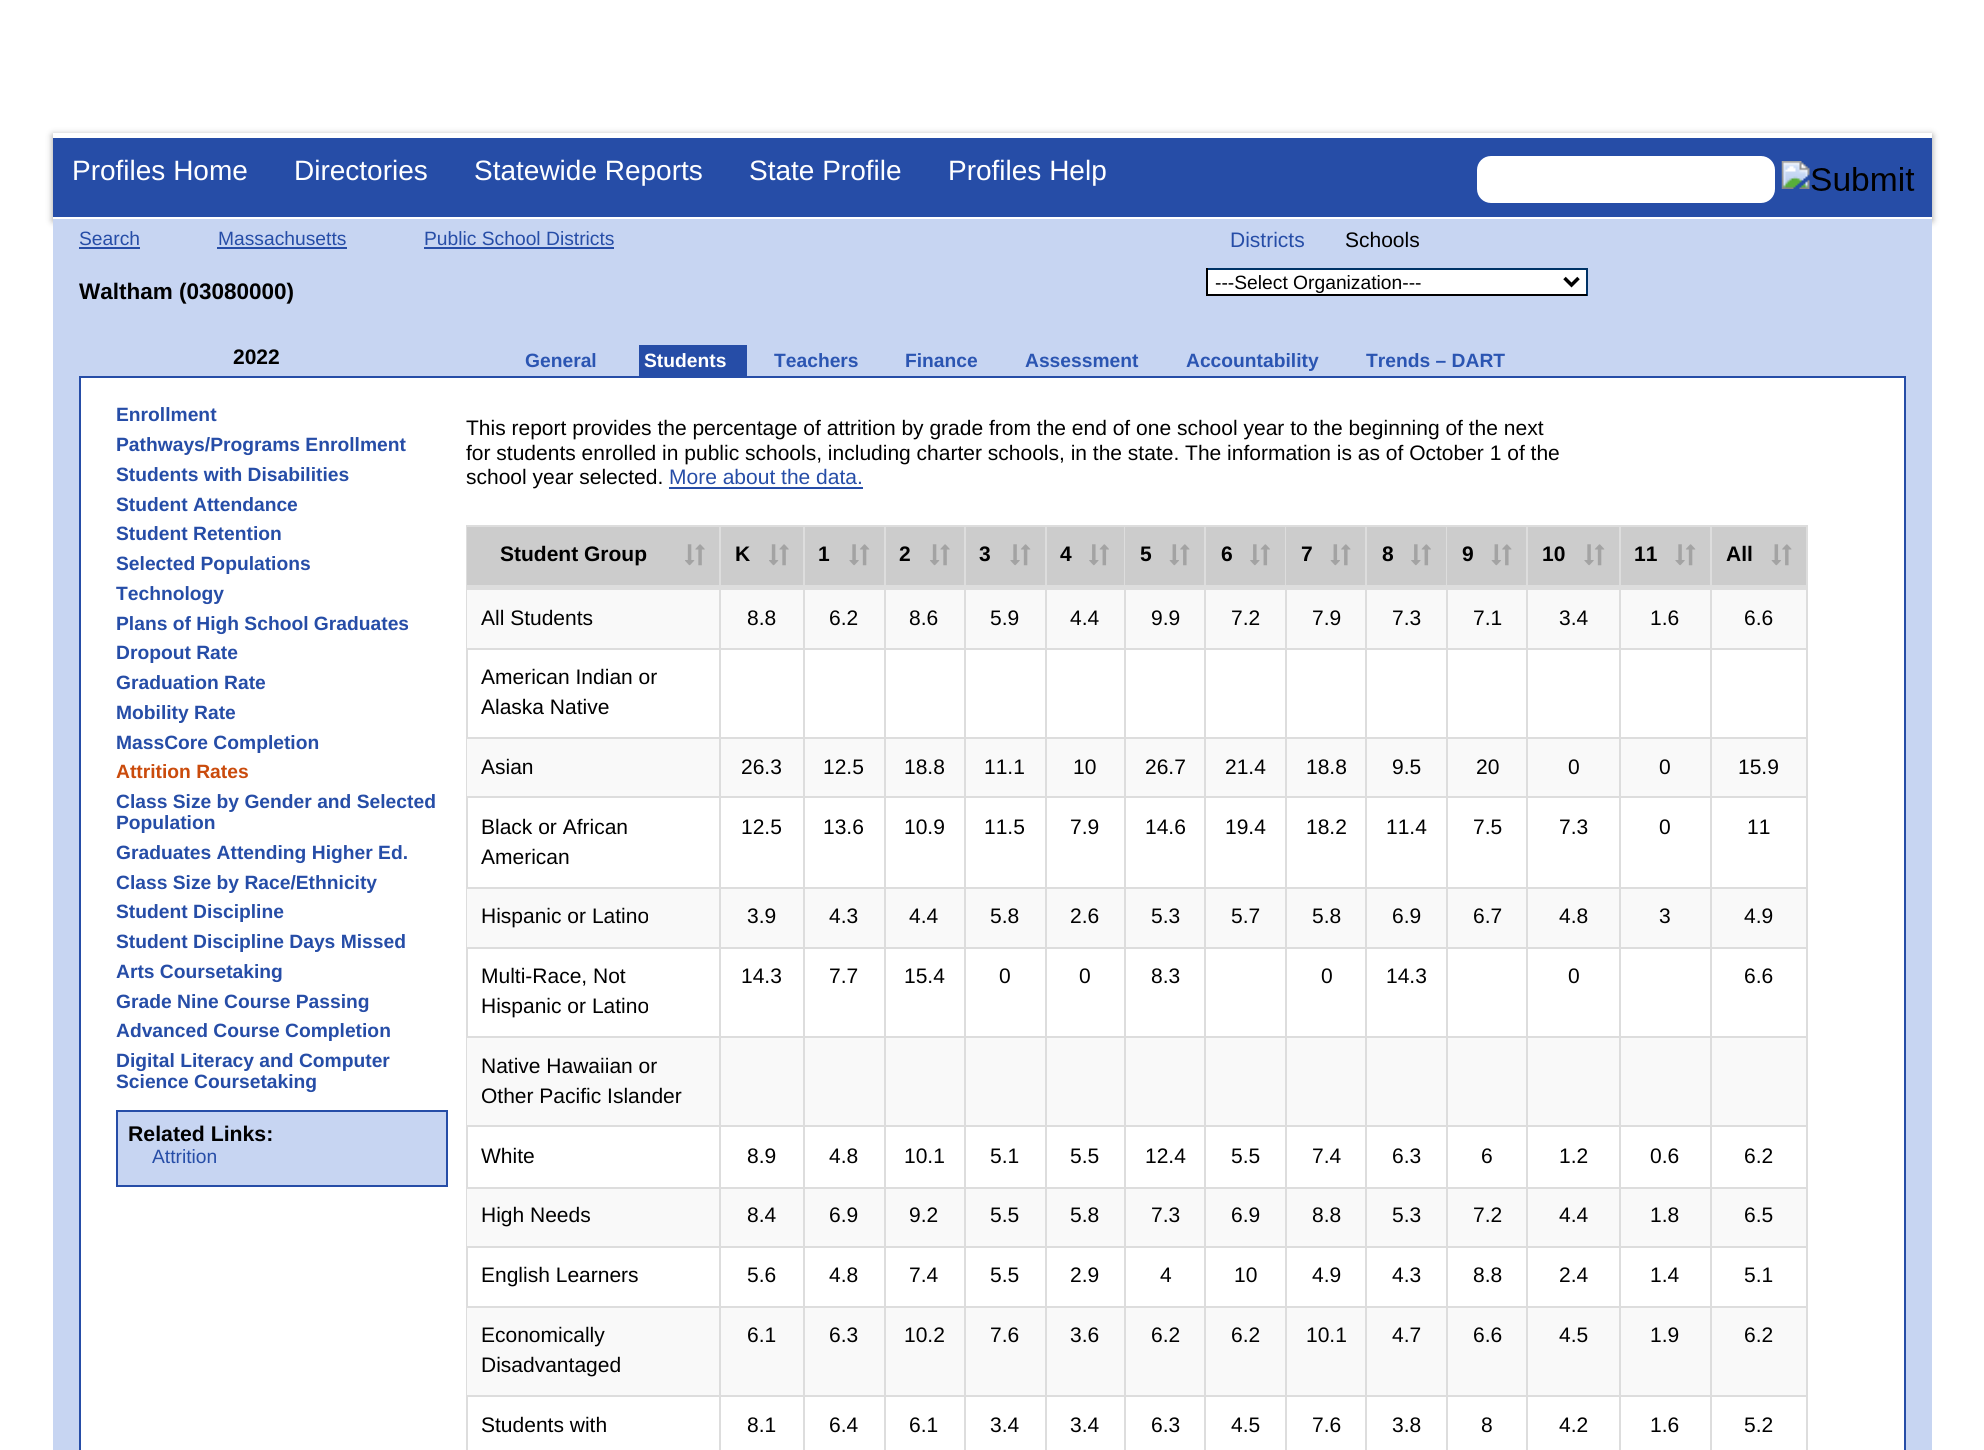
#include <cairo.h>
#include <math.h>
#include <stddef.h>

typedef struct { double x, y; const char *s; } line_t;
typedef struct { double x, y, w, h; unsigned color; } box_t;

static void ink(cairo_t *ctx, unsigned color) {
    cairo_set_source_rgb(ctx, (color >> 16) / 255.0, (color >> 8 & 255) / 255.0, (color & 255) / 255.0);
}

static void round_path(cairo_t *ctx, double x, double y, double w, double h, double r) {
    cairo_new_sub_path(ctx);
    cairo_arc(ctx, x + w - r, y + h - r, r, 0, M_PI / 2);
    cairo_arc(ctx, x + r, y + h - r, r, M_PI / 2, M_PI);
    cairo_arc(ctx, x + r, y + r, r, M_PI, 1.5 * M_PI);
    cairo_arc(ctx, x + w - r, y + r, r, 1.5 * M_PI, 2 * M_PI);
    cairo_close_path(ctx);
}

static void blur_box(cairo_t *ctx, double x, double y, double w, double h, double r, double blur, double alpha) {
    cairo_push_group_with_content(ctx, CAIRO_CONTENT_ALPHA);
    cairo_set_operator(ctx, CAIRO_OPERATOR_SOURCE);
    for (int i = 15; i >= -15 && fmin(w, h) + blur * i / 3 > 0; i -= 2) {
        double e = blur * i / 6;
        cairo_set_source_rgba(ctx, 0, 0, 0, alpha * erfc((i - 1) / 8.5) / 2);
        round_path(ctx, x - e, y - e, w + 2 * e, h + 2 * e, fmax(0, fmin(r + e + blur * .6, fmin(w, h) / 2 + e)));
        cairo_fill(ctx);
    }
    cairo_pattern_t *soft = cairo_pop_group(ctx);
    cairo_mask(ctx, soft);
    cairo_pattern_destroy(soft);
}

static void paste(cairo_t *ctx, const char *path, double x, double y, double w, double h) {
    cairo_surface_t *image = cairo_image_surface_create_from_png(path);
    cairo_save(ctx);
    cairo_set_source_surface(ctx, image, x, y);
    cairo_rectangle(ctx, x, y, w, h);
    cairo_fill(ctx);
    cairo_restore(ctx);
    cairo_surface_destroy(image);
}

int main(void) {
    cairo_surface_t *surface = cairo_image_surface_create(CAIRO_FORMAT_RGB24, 1984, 1450);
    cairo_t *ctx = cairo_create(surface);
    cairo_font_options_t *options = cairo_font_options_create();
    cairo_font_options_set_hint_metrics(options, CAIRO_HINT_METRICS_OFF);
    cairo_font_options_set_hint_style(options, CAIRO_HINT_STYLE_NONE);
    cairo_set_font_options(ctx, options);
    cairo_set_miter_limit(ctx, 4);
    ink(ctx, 0xFFFFFF);
    cairo_paint(ctx);
    ink(ctx, 0x9C9C9C);
    blur_box(ctx, 53, 135, 1879, 86, 0, 3.5, 1);
    {
        static const box_t items[] = {
            {53, 138, 1879, 79, 0x264DA7},
            {53, 133, 1879, 5, 0xFFFFFF},
            {53, 217, 1879, 2, 0xFFFFFF},
        };
        for (size_t i = 0; i < sizeof items / sizeof *items; i++) {
            ink(ctx, items[i].color);
            cairo_rectangle(ctx, items[i].x, items[i].y, items[i].w, items[i].h);
            cairo_fill(ctx);
        }
    }
    cairo_select_font_face(ctx, "Liberation Sans", CAIRO_FONT_SLANT_NORMAL, CAIRO_FONT_WEIGHT_NORMAL);
    cairo_set_font_size(ctx, 28);
    {
        static const line_t items[] = {
            {72, 180, "Profiles Home"},
            {294, 180, "Directories"},
            {474, 180, "Statewide Reports"},
            {749, 180, "State Profile"},
            {948, 180, "Profiles Help"},
        };
        for (size_t i = 0; i < sizeof items / sizeof *items; i++) {
            cairo_move_to(ctx, items[i].x, items[i].y);
            cairo_show_text(ctx, items[i].s);
        }
    }
    round_path(ctx, 1477, 156, 298, 47, 14);
    cairo_fill(ctx);
    paste(ctx, "media/1.png", 1781, 161, 134, 30);
    ink(ctx, 0xC7D5F2);
    cairo_rectangle(ctx, 53, 219, 1879, 1231);
    cairo_fill(ctx);
    cairo_set_font_size(ctx, 19.25);
    ink(ctx, 0x264DA7);
    cairo_move_to(ctx, 79, 245);
    cairo_show_text(ctx, "Search");
    cairo_rectangle(ctx, 79, 247, 61, 2);
    cairo_fill(ctx);
    cairo_move_to(ctx, 218, 245);
    cairo_show_text(ctx, "Massachusetts");
    cairo_rectangle(ctx, 217, 247, 130, 2);
    cairo_fill(ctx);
    cairo_move_to(ctx, 424, 245);
    cairo_show_text(ctx, "Public School Districts");
    cairo_rectangle(ctx, 424, 247, 190, 2);
    cairo_fill(ctx);
    cairo_select_font_face(ctx, "Liberation Sans", CAIRO_FONT_SLANT_NORMAL, CAIRO_FONT_WEIGHT_BOLD);
    cairo_set_font_size(ctx, 22.5);
    ink(ctx, 0x000000);
    cairo_move_to(ctx, 79, 299);
    cairo_show_text(ctx, "Waltham (03080000)");
    cairo_select_font_face(ctx, "Liberation Sans", CAIRO_FONT_SLANT_NORMAL, CAIRO_FONT_WEIGHT_NORMAL);
    cairo_set_font_size(ctx, 21);
    ink(ctx, 0x264DA7);
    cairo_move_to(ctx, 1230, 247);
    cairo_show_text(ctx, "Districts");
    ink(ctx, 0x000000);
    cairo_move_to(ctx, 1345, 247);
    cairo_show_text(ctx, "Schools");
    {
        static const box_t items[] = {
            {1208, 270, 378, 24, 0xFFFFFF},
            {1206, 268, 381, 2, 0x003366},
            {1586, 268, 2, 28, 0x003366},
            {1206, 294, 381, 2, 0x000000},
            {1206, 268, 2, 28, 0x000000},
        };
        for (size_t i = 0; i < sizeof items / sizeof *items; i++) {
            ink(ctx, items[i].color);
            cairo_rectangle(ctx, items[i].x, items[i].y, items[i].w, items[i].h);
            cairo_fill(ctx);
        }
    }
    cairo_new_path(ctx);
    cairo_move_to(ctx, 1564.5, 278);
    cairo_line_to(ctx, 1571.5, 285);
    cairo_line_to(ctx, 1578.5, 278);
    cairo_set_line_width(ctx, 3.5);
    cairo_stroke(ctx);
    cairo_set_font_size(ctx, 19.25);
    cairo_move_to(ctx, 1215, 289);
    cairo_show_text(ctx, "---Select Organization---");
    cairo_select_font_face(ctx, "Liberation Sans", CAIRO_FONT_SLANT_NORMAL, CAIRO_FONT_WEIGHT_BOLD);
    cairo_set_font_size(ctx, 21);
    cairo_move_to(ctx, 233, 364);
    cairo_show_text(ctx, "2022");
    cairo_set_font_size(ctx, 19.25);
    ink(ctx, 0x2B55B2);
    cairo_move_to(ctx, 525, 367);
    cairo_show_text(ctx, "General");
    ink(ctx, 0x264DA7);
    cairo_rectangle(ctx, 639, 345, 108, 31);
    cairo_fill(ctx);
    ink(ctx, 0xFFFFFF);
    cairo_move_to(ctx, 644, 367);
    cairo_show_text(ctx, "Students");
    ink(ctx, 0x2B55B2);
    {
        static const line_t items[] = {
            {774, 367, "Teachers"},
            {905, 367, "Finance"},
            {1025, 367, "Assessment"},
            {1186, 367, "Accountability"},
            {1366, 367, "Trends – DART"},
        };
        for (size_t i = 0; i < sizeof items / sizeof *items; i++) {
            cairo_move_to(ctx, items[i].x, items[i].y);
            cairo_show_text(ctx, items[i].s);
        }
    }
    ink(ctx, 0xFFFFFF);
    cairo_rectangle(ctx, 80, 377, 1825, 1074);
    cairo_fill_preserve(ctx);
    ink(ctx, 0x264DA7);
    cairo_set_line_width(ctx, 2);
    cairo_stroke(ctx);
    {
        static const line_t items[] = {
            {116, 421, "Enrollment"},
            {116, 451, "Pathways/Programs Enrollment"},
            {116, 481, "Students with Disabilities"},
            {116, 511, "Student Attendance"},
            {116, 540, "Student Retention"},
            {116, 570, "Selected Populations"},
            {116, 600, "Technology"},
            {116, 630, "Plans of High School Graduates"},
            {116, 659, "Dropout Rate"},
            {116, 689, "Graduation Rate"},
            {116, 719, "Mobility Rate"},
            {116, 749, "MassCore Completion"},
        };
        for (size_t i = 0; i < sizeof items / sizeof *items; i++) {
            cairo_move_to(ctx, items[i].x, items[i].y);
            cairo_show_text(ctx, items[i].s);
        }
    }
    ink(ctx, 0xCA4B0C);
    cairo_move_to(ctx, 116, 778);
    cairo_show_text(ctx, "Attrition Rates");
    ink(ctx, 0x264DA7);
    {
        static const line_t items[] = {
            {116, 808, "Class Size by Gender and Selected"},
            {116, 829, "Population"},
            {116, 859, "Graduates Attending Higher Ed."},
            {116, 889, "Class Size by Race/Ethnicity"},
            {116, 918, "Student Discipline"},
            {116, 948, "Student Discipline Days Missed"},
            {116, 978, "Arts Coursetaking"},
            {116, 1008, "Grade Nine Course Passing"},
            {116, 1037, "Advanced Course Completion"},
            {116, 1067, "Digital Literacy and Computer"},
            {116, 1088, "Science Coursetaking"},
        };
        for (size_t i = 0; i < sizeof items / sizeof *items; i++) {
            cairo_move_to(ctx, items[i].x, items[i].y);
            cairo_show_text(ctx, items[i].s);
        }
    }
    ink(ctx, 0xC7D5F2);
    cairo_rectangle(ctx, 117, 1111, 330, 75);
    cairo_fill_preserve(ctx);
    ink(ctx, 0x264DA7);
    cairo_stroke(ctx);
    cairo_set_font_size(ctx, 21.25);
    ink(ctx, 0x000000);
    cairo_move_to(ctx, 128, 1141);
    cairo_show_text(ctx, "Related Links:");
    cairo_select_font_face(ctx, "Liberation Sans", CAIRO_FONT_SLANT_NORMAL, CAIRO_FONT_WEIGHT_NORMAL);
    cairo_set_font_size(ctx, 19.25);
    ink(ctx, 0x264DA7);
    cairo_move_to(ctx, 152, 1163);
    cairo_show_text(ctx, "Attrition");
    cairo_set_font_size(ctx, 21);
    ink(ctx, 0x000000);
    {
        static const line_t items[] = {
            {466, 435, "This report provides the percentage of attrition by grade from the end of one school year to the beginning of the next"},
            {466, 460, "for students enrolled in public schools, including charter schools, in the state. The information is as of October 1 of the"},
            {466, 484, "school year selected."},
        };
        for (size_t i = 0; i < sizeof items / sizeof *items; i++) {
            cairo_move_to(ctx, items[i].x, items[i].y);
            cairo_show_text(ctx, items[i].s);
        }
    }
    ink(ctx, 0x264DA7);
    cairo_move_to(ctx, 669, 484);
    cairo_show_text(ctx, "More about the data.");
    cairo_rectangle(ctx, 669, 487, 194, 2);
    cairo_fill(ctx);
    cairo_rectangle(ctx, 467, 526, 1340, 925);
    ink(ctx, 0xDDDDDD);
    cairo_stroke(ctx);
    {
        static const box_t items[] = {
            {467, 527, 252, 58, 0xCCCCCC},
            {719, 527, 2, 61, 0xDDDDDD},
            {467, 590, 1339, 58, 0xF9F9F9},
            {467, 589, 658, 1, 0xDDDDDD},
            {719, 588, 2, 60, 0xDDDDDD},
            {467, 585, 254, 4, 0xDDDDDD},
        };
        for (size_t i = 0; i < sizeof items / sizeof *items; i++) {
            ink(ctx, items[i].color);
            cairo_rectangle(ctx, items[i].x, items[i].y, items[i].w, items[i].h);
            cairo_fill(ctx);
        }
    }
    cairo_select_font_face(ctx, "Liberation Sans", CAIRO_FONT_SLANT_NORMAL, CAIRO_FONT_WEIGHT_BOLD);
    ink(ctx, 0x000000);
    cairo_move_to(ctx, 500, 561);
    cairo_show_text(ctx, "Student Group");
    paste(ctx, "media/2.png", 685, 544, 20, 22);
    {
        static const box_t items[] = {
            {721, 527, 82, 58, 0xCCCCCC},
            {803, 527, 2, 61, 0xDDDDDD},
            {803, 588, 2, 60, 0xDDDDDD},
            {721, 585, 84, 4, 0xDDDDDD},
        };
        for (size_t i = 0; i < sizeof items / sizeof *items; i++) {
            ink(ctx, items[i].color);
            cairo_rectangle(ctx, items[i].x, items[i].y, items[i].w, items[i].h);
            cairo_fill(ctx);
        }
    }
    ink(ctx, 0x000000);
    cairo_move_to(ctx, 735, 561);
    cairo_show_text(ctx, "K");
    paste(ctx, "media/2.png", 769, 544, 20, 22);
    {
        static const box_t items[] = {
            {805, 527, 79, 58, 0xCCCCCC},
            {884, 527, 2, 61, 0xDDDDDD},
            {884, 588, 2, 60, 0xDDDDDD},
            {805, 585, 81, 4, 0xDDDDDD},
        };
        for (size_t i = 0; i < sizeof items / sizeof *items; i++) {
            ink(ctx, items[i].color);
            cairo_rectangle(ctx, items[i].x, items[i].y, items[i].w, items[i].h);
            cairo_fill(ctx);
        }
    }
    ink(ctx, 0x000000);
    cairo_move_to(ctx, 818, 561);
    cairo_show_text(ctx, "1");
    paste(ctx, "media/3.png", 849, 544, 21, 22);
    {
        static const box_t items[] = {
            {886, 527, 78, 58, 0xCCCCCC},
            {964, 527, 2, 61, 0xDDDDDD},
            {964, 588, 2, 60, 0xDDDDDD},
            {886, 585, 80, 4, 0xDDDDDD},
        };
        for (size_t i = 0; i < sizeof items / sizeof *items; i++) {
            ink(ctx, items[i].color);
            cairo_rectangle(ctx, items[i].x, items[i].y, items[i].w, items[i].h);
            cairo_fill(ctx);
        }
    }
    ink(ctx, 0x000000);
    cairo_move_to(ctx, 899, 561);
    cairo_show_text(ctx, "2");
    paste(ctx, "media/2.png", 930, 544, 20, 22);
    {
        static const box_t items[] = {
            {966, 527, 79, 58, 0xCCCCCC},
            {1045, 527, 2, 61, 0xDDDDDD},
            {1045, 588, 2, 60, 0xDDDDDD},
            {966, 585, 81, 4, 0xDDDDDD},
        };
        for (size_t i = 0; i < sizeof items / sizeof *items; i++) {
            ink(ctx, items[i].color);
            cairo_rectangle(ctx, items[i].x, items[i].y, items[i].w, items[i].h);
            cairo_fill(ctx);
        }
    }
    ink(ctx, 0x000000);
    cairo_move_to(ctx, 979, 561);
    cairo_show_text(ctx, "3");
    paste(ctx, "media/3.png", 1010, 544, 21, 22);
    {
        static const box_t items[] = {
            {1047, 527, 77, 58, 0xCCCCCC},
            {1124, 527, 1, 61, 0xDDDDDD},
            {1124, 588, 2, 60, 0xDDDDDD},
            {1047, 585, 78, 4, 0xDDDDDD},
        };
        for (size_t i = 0; i < sizeof items / sizeof *items; i++) {
            ink(ctx, items[i].color);
            cairo_rectangle(ctx, items[i].x, items[i].y, items[i].w, items[i].h);
            cairo_fill(ctx);
        }
    }
    ink(ctx, 0x000000);
    cairo_move_to(ctx, 1060, 561);
    cairo_show_text(ctx, "4");
    paste(ctx, "media/4.png", 1089, 544, 20, 22);
    {
        static const box_t items[] = {
            {1125, 527, 79, 58, 0xCCCCCC},
            {1204, 527, 2, 61, 0xDDDDDD},
            {1125, 589, 161, 1, 0xDDDDDD},
            {1204, 588, 2, 60, 0xDDDDDD},
            {1125, 585, 81, 4, 0xDDDDDD},
        };
        for (size_t i = 0; i < sizeof items / sizeof *items; i++) {
            ink(ctx, items[i].color);
            cairo_rectangle(ctx, items[i].x, items[i].y, items[i].w, items[i].h);
            cairo_fill(ctx);
        }
    }
    ink(ctx, 0x000000);
    cairo_move_to(ctx, 1140, 561);
    cairo_show_text(ctx, "5");
    paste(ctx, "media/5.png", 1169, 544, 21, 22);
    {
        static const box_t items[] = {
            {1206, 527, 79, 58, 0xCCCCCC},
            {1285, 527, 1, 61, 0xDDDDDD},
            {1285, 588, 2, 60, 0xDDDDDD},
            {1206, 585, 80, 4, 0xDDDDDD},
        };
        for (size_t i = 0; i < sizeof items / sizeof *items; i++) {
            ink(ctx, items[i].color);
            cairo_rectangle(ctx, items[i].x, items[i].y, items[i].w, items[i].h);
            cairo_fill(ctx);
        }
    }
    ink(ctx, 0x000000);
    cairo_move_to(ctx, 1221, 561);
    cairo_show_text(ctx, "6");
    paste(ctx, "media/4.png", 1250, 544, 20, 22);
    {
        static const box_t items[] = {
            {1286, 527, 79, 58, 0xCCCCCC},
            {1365, 527, 2, 61, 0xDDDDDD},
            {1286, 589, 161, 1, 0xDDDDDD},
            {1365, 588, 2, 60, 0xDDDDDD},
            {1286, 585, 81, 4, 0xDDDDDD},
        };
        for (size_t i = 0; i < sizeof items / sizeof *items; i++) {
            ink(ctx, items[i].color);
            cairo_rectangle(ctx, items[i].x, items[i].y, items[i].w, items[i].h);
            cairo_fill(ctx);
        }
    }
    ink(ctx, 0x000000);
    cairo_move_to(ctx, 1301, 561);
    cairo_show_text(ctx, "7");
    paste(ctx, "media/5.png", 1330, 544, 21, 22);
    {
        static const box_t items[] = {
            {1367, 527, 79, 58, 0xCCCCCC},
            {1446, 527, 1, 61, 0xDDDDDD},
            {1446, 588, 2, 60, 0xDDDDDD},
            {1367, 585, 80, 4, 0xDDDDDD},
        };
        for (size_t i = 0; i < sizeof items / sizeof *items; i++) {
            ink(ctx, items[i].color);
            cairo_rectangle(ctx, items[i].x, items[i].y, items[i].w, items[i].h);
            cairo_fill(ctx);
        }
    }
    ink(ctx, 0x000000);
    cairo_move_to(ctx, 1382, 561);
    cairo_show_text(ctx, "8");
    paste(ctx, "media/4.png", 1411, 544, 20, 22);
    {
        static const box_t items[] = {
            {1447, 527, 79, 58, 0xCCCCCC},
            {1526, 527, 2, 61, 0xDDDDDD},
            {1447, 589, 359, 1, 0xDDDDDD},
            {1526, 588, 2, 60, 0xDDDDDD},
            {1447, 585, 81, 4, 0xDDDDDD},
        };
        for (size_t i = 0; i < sizeof items / sizeof *items; i++) {
            ink(ctx, items[i].color);
            cairo_rectangle(ctx, items[i].x, items[i].y, items[i].w, items[i].h);
            cairo_fill(ctx);
        }
    }
    ink(ctx, 0x000000);
    cairo_move_to(ctx, 1462, 561);
    cairo_show_text(ctx, "9");
    paste(ctx, "media/5.png", 1491, 544, 21, 22);
    {
        static const box_t items[] = {
            {1528, 527, 91, 58, 0xCCCCCC},
            {1619, 527, 2, 61, 0xDDDDDD},
            {1619, 588, 2, 60, 0xDDDDDD},
            {1528, 585, 93, 4, 0xDDDDDD},
        };
        for (size_t i = 0; i < sizeof items / sizeof *items; i++) {
            ink(ctx, items[i].color);
            cairo_rectangle(ctx, items[i].x, items[i].y, items[i].w, items[i].h);
            cairo_fill(ctx);
        }
    }
    ink(ctx, 0x000000);
    cairo_move_to(ctx, 1542, 561);
    cairo_show_text(ctx, "10");
    paste(ctx, "media/3.png", 1584, 544, 21, 22);
    {
        static const box_t items[] = {
            {1621, 527, 89, 58, 0xCCCCCC},
            {1710, 527, 2, 61, 0xDDDDDD},
            {1710, 588, 2, 60, 0xDDDDDD},
            {1621, 585, 185, 4, 0xDDDDDD},
        };
        for (size_t i = 0; i < sizeof items / sizeof *items; i++) {
            ink(ctx, items[i].color);
            cairo_rectangle(ctx, items[i].x, items[i].y, items[i].w, items[i].h);
            cairo_fill(ctx);
        }
    }
    ink(ctx, 0x000000);
    cairo_move_to(ctx, 1634, 561);
    cairo_show_text(ctx, "11");
    paste(ctx, "media/3.png", 1675, 544, 21, 22);
    ink(ctx, 0xCCCCCC);
    cairo_rectangle(ctx, 1712, 527, 94, 58);
    cairo_fill(ctx);
    ink(ctx, 0x000000);
    cairo_move_to(ctx, 1726, 561);
    cairo_show_text(ctx, "All");
    paste(ctx, "media/5.png", 1771, 544, 21, 22);
    cairo_select_font_face(ctx, "Liberation Sans", CAIRO_FONT_SLANT_NORMAL, CAIRO_FONT_WEIGHT_NORMAL);
    {
        static const line_t items[] = {
            {481, 625, "All Students"},
            {747, 625, "8.8"},
            {829, 625, "6.2"},
            {909, 625, "8.6"},
            {990, 625, "5.9"},
            {1070, 625, "4.4"},
            {1151, 625, "9.9"},
            {1231, 625, "7.2"},
            {1312, 625, "7.9"},
            {1392, 625, "7.3"},
            {1473, 625, "7.1"},
            {1559, 625, "3.4"},
            {1650, 625, "1.6"},
            {1744, 625, "6.6"},
        };
        for (size_t i = 0; i < sizeof items / sizeof *items; i++) {
            cairo_move_to(ctx, items[i].x, items[i].y);
            cairo_show_text(ctx, items[i].s);
        }
    }
    {
        static const box_t items[] = {
            {467, 648, 658, 2, 0xDDDDDD},
            {803, 648, 2, 89, 0xDDDDDD},
            {884, 648, 2, 89, 0xDDDDDD},
            {964, 648, 2, 89, 0xDDDDDD},
            {1045, 648, 2, 89, 0xDDDDDD},
            {1124, 648, 2, 89, 0xDDDDDD},
            {1125, 648, 161, 2, 0xDDDDDD},
            {1204, 648, 2, 89, 0xDDDDDD},
            {1285, 648, 2, 89, 0xDDDDDD},
            {1286, 648, 161, 2, 0xDDDDDD},
            {1365, 648, 2, 89, 0xDDDDDD},
            {1446, 648, 2, 89, 0xDDDDDD},
            {1447, 648, 359, 2, 0xDDDDDD},
            {1526, 648, 2, 89, 0xDDDDDD},
            {719, 648, 2, 89, 0xDDDDDD},
        };
        for (size_t i = 0; i < sizeof items / sizeof *items; i++) {
            ink(ctx, items[i].color);
            cairo_rectangle(ctx, items[i].x, items[i].y, items[i].w, items[i].h);
            cairo_fill(ctx);
        }
    }
    ink(ctx, 0x000000);
    cairo_move_to(ctx, 481, 684);
    cairo_show_text(ctx, "American Indian or");
    cairo_move_to(ctx, 481, 714);
    cairo_show_text(ctx, "Alaska Native");
    {
        static const box_t items[] = {
            {1619, 648, 2, 89, 0xDDDDDD},
            {1710, 648, 2, 89, 0xDDDDDD},
            {467, 739, 1339, 57, 0xF9F9F9},
            {467, 737, 658, 2, 0xDDDDDD},
            {719, 737, 2, 59, 0xDDDDDD},
        };
        for (size_t i = 0; i < sizeof items / sizeof *items; i++) {
            ink(ctx, items[i].color);
            cairo_rectangle(ctx, items[i].x, items[i].y, items[i].w, items[i].h);
            cairo_fill(ctx);
        }
    }
    ink(ctx, 0x000000);
    cairo_move_to(ctx, 481, 774);
    cairo_show_text(ctx, "Asian");
    ink(ctx, 0xDDDDDD);
    cairo_rectangle(ctx, 803, 737, 2, 59);
    cairo_fill(ctx);
    ink(ctx, 0x000000);
    cairo_move_to(ctx, 741, 774);
    cairo_show_text(ctx, "26.3");
    ink(ctx, 0xDDDDDD);
    cairo_rectangle(ctx, 884, 737, 2, 59);
    cairo_fill(ctx);
    ink(ctx, 0x000000);
    cairo_move_to(ctx, 823, 774);
    cairo_show_text(ctx, "12.5");
    ink(ctx, 0xDDDDDD);
    cairo_rectangle(ctx, 964, 737, 2, 59);
    cairo_fill(ctx);
    ink(ctx, 0x000000);
    cairo_move_to(ctx, 904, 774);
    cairo_show_text(ctx, "18.8");
    ink(ctx, 0xDDDDDD);
    cairo_rectangle(ctx, 1045, 737, 2, 59);
    cairo_fill(ctx);
    ink(ctx, 0x000000);
    cairo_move_to(ctx, 984, 774);
    cairo_show_text(ctx, "11.1");
    ink(ctx, 0xDDDDDD);
    cairo_rectangle(ctx, 1124, 737, 2, 59);
    cairo_fill(ctx);
    ink(ctx, 0x000000);
    cairo_move_to(ctx, 1073, 774);
    cairo_show_text(ctx, "10");
    ink(ctx, 0xDDDDDD);
    cairo_rectangle(ctx, 1125, 737, 161, 2);
    cairo_fill(ctx);
    cairo_rectangle(ctx, 1204, 737, 2, 59);
    cairo_fill(ctx);
    ink(ctx, 0x000000);
    cairo_move_to(ctx, 1145, 774);
    cairo_show_text(ctx, "26.7");
    ink(ctx, 0xDDDDDD);
    cairo_rectangle(ctx, 1285, 737, 2, 59);
    cairo_fill(ctx);
    ink(ctx, 0x000000);
    cairo_move_to(ctx, 1225, 774);
    cairo_show_text(ctx, "21.4");
    ink(ctx, 0xDDDDDD);
    cairo_rectangle(ctx, 1286, 737, 161, 2);
    cairo_fill(ctx);
    cairo_rectangle(ctx, 1365, 737, 2, 59);
    cairo_fill(ctx);
    ink(ctx, 0x000000);
    cairo_move_to(ctx, 1306, 774);
    cairo_show_text(ctx, "18.8");
    ink(ctx, 0xDDDDDD);
    cairo_rectangle(ctx, 1446, 737, 2, 59);
    cairo_fill(ctx);
    ink(ctx, 0x000000);
    cairo_move_to(ctx, 1392, 774);
    cairo_show_text(ctx, "9.5");
    ink(ctx, 0xDDDDDD);
    cairo_rectangle(ctx, 1447, 737, 359, 2);
    cairo_fill(ctx);
    cairo_rectangle(ctx, 1526, 737, 2, 59);
    cairo_fill(ctx);
    ink(ctx, 0x000000);
    cairo_move_to(ctx, 1476, 774);
    cairo_show_text(ctx, "20");
    ink(ctx, 0xDDDDDD);
    cairo_rectangle(ctx, 1619, 737, 2, 59);
    cairo_fill(ctx);
    ink(ctx, 0x000000);
    cairo_move_to(ctx, 1568, 774);
    cairo_show_text(ctx, "0");
    ink(ctx, 0xDDDDDD);
    cairo_rectangle(ctx, 1710, 737, 2, 59);
    cairo_fill(ctx);
    ink(ctx, 0x000000);
    cairo_move_to(ctx, 1659, 774);
    cairo_show_text(ctx, "0");
    cairo_move_to(ctx, 1738, 774);
    cairo_show_text(ctx, "15.9");
    ink(ctx, 0xDDDDDD);
    cairo_rectangle(ctx, 467, 796, 658, 2);
    cairo_fill(ctx);
    cairo_rectangle(ctx, 719, 796, 2, 91);
    cairo_fill(ctx);
    ink(ctx, 0x000000);
    cairo_move_to(ctx, 481, 834);
    cairo_show_text(ctx, "Black or African");
    cairo_move_to(ctx, 481, 864);
    cairo_show_text(ctx, "American");
    ink(ctx, 0xDDDDDD);
    cairo_rectangle(ctx, 803, 796, 2, 91);
    cairo_fill(ctx);
    ink(ctx, 0x000000);
    cairo_move_to(ctx, 741, 834);
    cairo_show_text(ctx, "12.5");
    ink(ctx, 0xDDDDDD);
    cairo_rectangle(ctx, 884, 796, 2, 91);
    cairo_fill(ctx);
    ink(ctx, 0x000000);
    cairo_move_to(ctx, 823, 834);
    cairo_show_text(ctx, "13.6");
    ink(ctx, 0xDDDDDD);
    cairo_rectangle(ctx, 964, 796, 2, 91);
    cairo_fill(ctx);
    ink(ctx, 0x000000);
    cairo_move_to(ctx, 904, 834);
    cairo_show_text(ctx, "10.9");
    ink(ctx, 0xDDDDDD);
    cairo_rectangle(ctx, 1045, 796, 2, 91);
    cairo_fill(ctx);
    ink(ctx, 0x000000);
    cairo_move_to(ctx, 984, 834);
    cairo_show_text(ctx, "11.5");
    ink(ctx, 0xDDDDDD);
    cairo_rectangle(ctx, 1124, 796, 2, 91);
    cairo_fill(ctx);
    ink(ctx, 0x000000);
    cairo_move_to(ctx, 1070, 834);
    cairo_show_text(ctx, "7.9");
    ink(ctx, 0xDDDDDD);
    cairo_rectangle(ctx, 1125, 796, 161, 2);
    cairo_fill(ctx);
    cairo_rectangle(ctx, 1204, 796, 2, 91);
    cairo_fill(ctx);
    ink(ctx, 0x000000);
    cairo_move_to(ctx, 1145, 834);
    cairo_show_text(ctx, "14.6");
    ink(ctx, 0xDDDDDD);
    cairo_rectangle(ctx, 1285, 796, 2, 91);
    cairo_fill(ctx);
    ink(ctx, 0x000000);
    cairo_move_to(ctx, 1225, 834);
    cairo_show_text(ctx, "19.4");
    ink(ctx, 0xDDDDDD);
    cairo_rectangle(ctx, 1286, 796, 161, 2);
    cairo_fill(ctx);
    cairo_rectangle(ctx, 1365, 796, 2, 91);
    cairo_fill(ctx);
    ink(ctx, 0x000000);
    cairo_move_to(ctx, 1306, 834);
    cairo_show_text(ctx, "18.2");
    ink(ctx, 0xDDDDDD);
    cairo_rectangle(ctx, 1446, 796, 2, 91);
    cairo_fill(ctx);
    ink(ctx, 0x000000);
    cairo_move_to(ctx, 1386, 834);
    cairo_show_text(ctx, "11.4");
    ink(ctx, 0xDDDDDD);
    cairo_rectangle(ctx, 1447, 796, 359, 2);
    cairo_fill(ctx);
    cairo_rectangle(ctx, 1526, 796, 2, 91);
    cairo_fill(ctx);
    ink(ctx, 0x000000);
    cairo_move_to(ctx, 1473, 834);
    cairo_show_text(ctx, "7.5");
    ink(ctx, 0xDDDDDD);
    cairo_rectangle(ctx, 1619, 796, 2, 91);
    cairo_fill(ctx);
    ink(ctx, 0x000000);
    cairo_move_to(ctx, 1559, 834);
    cairo_show_text(ctx, "7.3");
    ink(ctx, 0xDDDDDD);
    cairo_rectangle(ctx, 1710, 796, 2, 91);
    cairo_fill(ctx);
    ink(ctx, 0x000000);
    cairo_move_to(ctx, 1659, 834);
    cairo_show_text(ctx, "0");
    cairo_move_to(ctx, 1747, 834);
    cairo_show_text(ctx, "11");
    {
        static const box_t items[] = {
            {467, 889, 1339, 58, 0xF9F9F9},
            {467, 887, 658, 2, 0xDDDDDD},
            {719, 887, 2, 60, 0xDDDDDD},
        };
        for (size_t i = 0; i < sizeof items / sizeof *items; i++) {
            ink(ctx, items[i].color);
            cairo_rectangle(ctx, items[i].x, items[i].y, items[i].w, items[i].h);
            cairo_fill(ctx);
        }
    }
    ink(ctx, 0x000000);
    cairo_move_to(ctx, 481, 923);
    cairo_show_text(ctx, "Hispanic or Latino");
    ink(ctx, 0xDDDDDD);
    cairo_rectangle(ctx, 803, 887, 2, 60);
    cairo_fill(ctx);
    ink(ctx, 0x000000);
    cairo_move_to(ctx, 747, 923);
    cairo_show_text(ctx, "3.9");
    ink(ctx, 0xDDDDDD);
    cairo_rectangle(ctx, 884, 887, 2, 60);
    cairo_fill(ctx);
    ink(ctx, 0x000000);
    cairo_move_to(ctx, 829, 923);
    cairo_show_text(ctx, "4.3");
    ink(ctx, 0xDDDDDD);
    cairo_rectangle(ctx, 964, 887, 2, 60);
    cairo_fill(ctx);
    ink(ctx, 0x000000);
    cairo_move_to(ctx, 909, 923);
    cairo_show_text(ctx, "4.4");
    ink(ctx, 0xDDDDDD);
    cairo_rectangle(ctx, 1045, 887, 2, 60);
    cairo_fill(ctx);
    ink(ctx, 0x000000);
    cairo_move_to(ctx, 990, 923);
    cairo_show_text(ctx, "5.8");
    ink(ctx, 0xDDDDDD);
    cairo_rectangle(ctx, 1124, 887, 2, 60);
    cairo_fill(ctx);
    ink(ctx, 0x000000);
    cairo_move_to(ctx, 1070, 923);
    cairo_show_text(ctx, "2.6");
    ink(ctx, 0xDDDDDD);
    cairo_rectangle(ctx, 1125, 887, 161, 2);
    cairo_fill(ctx);
    cairo_rectangle(ctx, 1204, 887, 2, 60);
    cairo_fill(ctx);
    ink(ctx, 0x000000);
    cairo_move_to(ctx, 1151, 923);
    cairo_show_text(ctx, "5.3");
    ink(ctx, 0xDDDDDD);
    cairo_rectangle(ctx, 1285, 887, 2, 60);
    cairo_fill(ctx);
    ink(ctx, 0x000000);
    cairo_move_to(ctx, 1231, 923);
    cairo_show_text(ctx, "5.7");
    ink(ctx, 0xDDDDDD);
    cairo_rectangle(ctx, 1286, 887, 161, 2);
    cairo_fill(ctx);
    cairo_rectangle(ctx, 1365, 887, 2, 60);
    cairo_fill(ctx);
    ink(ctx, 0x000000);
    cairo_move_to(ctx, 1312, 923);
    cairo_show_text(ctx, "5.8");
    ink(ctx, 0xDDDDDD);
    cairo_rectangle(ctx, 1446, 887, 2, 60);
    cairo_fill(ctx);
    ink(ctx, 0x000000);
    cairo_move_to(ctx, 1392, 923);
    cairo_show_text(ctx, "6.9");
    ink(ctx, 0xDDDDDD);
    cairo_rectangle(ctx, 1447, 887, 359, 2);
    cairo_fill(ctx);
    cairo_rectangle(ctx, 1526, 887, 2, 60);
    cairo_fill(ctx);
    ink(ctx, 0x000000);
    cairo_move_to(ctx, 1473, 923);
    cairo_show_text(ctx, "6.7");
    ink(ctx, 0xDDDDDD);
    cairo_rectangle(ctx, 1619, 887, 2, 60);
    cairo_fill(ctx);
    ink(ctx, 0x000000);
    cairo_move_to(ctx, 1559, 923);
    cairo_show_text(ctx, "4.8");
    ink(ctx, 0xDDDDDD);
    cairo_rectangle(ctx, 1710, 887, 2, 60);
    cairo_fill(ctx);
    ink(ctx, 0x000000);
    cairo_move_to(ctx, 1659, 923);
    cairo_show_text(ctx, "3");
    cairo_move_to(ctx, 1744, 923);
    cairo_show_text(ctx, "4.9");
    {
        static const box_t items[] = {
            {467, 947, 658, 2, 0xDDDDDD},
            {1124, 947, 2, 89, 0xDDDDDD},
            {1125, 947, 161, 2, 0xDDDDDD},
            {1285, 947, 2, 89, 0xDDDDDD},
            {1286, 947, 161, 2, 0xDDDDDD},
            {1446, 947, 2, 89, 0xDDDDDD},
            {1447, 947, 359, 2, 0xDDDDDD},
            {1526, 947, 2, 89, 0xDDDDDD},
            {719, 947, 2, 89, 0xDDDDDD},
        };
        for (size_t i = 0; i < sizeof items / sizeof *items; i++) {
            ink(ctx, items[i].color);
            cairo_rectangle(ctx, items[i].x, items[i].y, items[i].w, items[i].h);
            cairo_fill(ctx);
        }
    }
    ink(ctx, 0x000000);
    cairo_move_to(ctx, 481, 983);
    cairo_show_text(ctx, "Multi-Race, Not");
    cairo_move_to(ctx, 481, 1013);
    cairo_show_text(ctx, "Hispanic or Latino");
    ink(ctx, 0xDDDDDD);
    cairo_rectangle(ctx, 803, 947, 2, 89);
    cairo_fill(ctx);
    ink(ctx, 0x000000);
    cairo_move_to(ctx, 741, 983);
    cairo_show_text(ctx, "14.3");
    ink(ctx, 0xDDDDDD);
    cairo_rectangle(ctx, 884, 947, 2, 89);
    cairo_fill(ctx);
    ink(ctx, 0x000000);
    cairo_move_to(ctx, 829, 983);
    cairo_show_text(ctx, "7.7");
    ink(ctx, 0xDDDDDD);
    cairo_rectangle(ctx, 964, 947, 2, 89);
    cairo_fill(ctx);
    ink(ctx, 0x000000);
    cairo_move_to(ctx, 904, 983);
    cairo_show_text(ctx, "15.4");
    ink(ctx, 0xDDDDDD);
    cairo_rectangle(ctx, 1045, 947, 2, 89);
    cairo_fill(ctx);
    ink(ctx, 0x000000);
    cairo_move_to(ctx, 999, 983);
    cairo_show_text(ctx, "0");
    cairo_move_to(ctx, 1079, 983);
    cairo_show_text(ctx, "0");
    ink(ctx, 0xDDDDDD);
    cairo_rectangle(ctx, 1204, 947, 2, 89);
    cairo_fill(ctx);
    ink(ctx, 0x000000);
    cairo_move_to(ctx, 1151, 983);
    cairo_show_text(ctx, "8.3");
    ink(ctx, 0xDDDDDD);
    cairo_rectangle(ctx, 1365, 947, 2, 89);
    cairo_fill(ctx);
    ink(ctx, 0x000000);
    cairo_move_to(ctx, 1321, 983);
    cairo_show_text(ctx, "0");
    cairo_move_to(ctx, 1386, 983);
    cairo_show_text(ctx, "14.3");
    ink(ctx, 0xDDDDDD);
    cairo_rectangle(ctx, 1619, 947, 2, 89);
    cairo_fill(ctx);
    ink(ctx, 0x000000);
    cairo_move_to(ctx, 1568, 983);
    cairo_show_text(ctx, "0");
    ink(ctx, 0xDDDDDD);
    cairo_rectangle(ctx, 1710, 947, 2, 89);
    cairo_fill(ctx);
    ink(ctx, 0x000000);
    cairo_move_to(ctx, 1744, 983);
    cairo_show_text(ctx, "6.6");
    {
        static const box_t items[] = {
            {467, 1038, 1339, 87, 0xF9F9F9},
            {467, 1036, 658, 2, 0xDDDDDD},
            {803, 1036, 2, 89, 0xDDDDDD},
            {884, 1036, 2, 89, 0xDDDDDD},
            {964, 1036, 2, 89, 0xDDDDDD},
            {1045, 1036, 2, 89, 0xDDDDDD},
            {1124, 1036, 2, 89, 0xDDDDDD},
            {1125, 1036, 161, 2, 0xDDDDDD},
            {1204, 1036, 2, 89, 0xDDDDDD},
            {1285, 1036, 2, 89, 0xDDDDDD},
            {1286, 1036, 161, 2, 0xDDDDDD},
            {1365, 1036, 2, 89, 0xDDDDDD},
            {1446, 1036, 2, 89, 0xDDDDDD},
            {1447, 1036, 359, 2, 0xDDDDDD},
            {1526, 1036, 2, 89, 0xDDDDDD},
            {719, 1036, 2, 89, 0xDDDDDD},
        };
        for (size_t i = 0; i < sizeof items / sizeof *items; i++) {
            ink(ctx, items[i].color);
            cairo_rectangle(ctx, items[i].x, items[i].y, items[i].w, items[i].h);
            cairo_fill(ctx);
        }
    }
    ink(ctx, 0x000000);
    cairo_move_to(ctx, 481, 1073);
    cairo_show_text(ctx, "Native Hawaiian or");
    cairo_move_to(ctx, 481, 1103);
    cairo_show_text(ctx, "Other Pacific Islander");
    {
        static const box_t items[] = {
            {1619, 1036, 2, 89, 0xDDDDDD},
            {1710, 1036, 2, 89, 0xDDDDDD},
            {467, 1125, 658, 2, 0xDDDDDD},
            {719, 1125, 2, 62, 0xDDDDDD},
        };
        for (size_t i = 0; i < sizeof items / sizeof *items; i++) {
            ink(ctx, items[i].color);
            cairo_rectangle(ctx, items[i].x, items[i].y, items[i].w, items[i].h);
            cairo_fill(ctx);
        }
    }
    ink(ctx, 0x000000);
    cairo_move_to(ctx, 481, 1163);
    cairo_show_text(ctx, "White");
    ink(ctx, 0xDDDDDD);
    cairo_rectangle(ctx, 803, 1125, 2, 62);
    cairo_fill(ctx);
    ink(ctx, 0x000000);
    cairo_move_to(ctx, 747, 1163);
    cairo_show_text(ctx, "8.9");
    ink(ctx, 0xDDDDDD);
    cairo_rectangle(ctx, 884, 1125, 2, 62);
    cairo_fill(ctx);
    ink(ctx, 0x000000);
    cairo_move_to(ctx, 829, 1163);
    cairo_show_text(ctx, "4.8");
    ink(ctx, 0xDDDDDD);
    cairo_rectangle(ctx, 964, 1125, 2, 62);
    cairo_fill(ctx);
    ink(ctx, 0x000000);
    cairo_move_to(ctx, 904, 1163);
    cairo_show_text(ctx, "10.1");
    ink(ctx, 0xDDDDDD);
    cairo_rectangle(ctx, 1045, 1125, 2, 62);
    cairo_fill(ctx);
    ink(ctx, 0x000000);
    cairo_move_to(ctx, 990, 1163);
    cairo_show_text(ctx, "5.1");
    ink(ctx, 0xDDDDDD);
    cairo_rectangle(ctx, 1124, 1125, 2, 62);
    cairo_fill(ctx);
    ink(ctx, 0x000000);
    cairo_move_to(ctx, 1070, 1163);
    cairo_show_text(ctx, "5.5");
    ink(ctx, 0xDDDDDD);
    cairo_rectangle(ctx, 1125, 1125, 161, 2);
    cairo_fill(ctx);
    cairo_rectangle(ctx, 1204, 1125, 2, 62);
    cairo_fill(ctx);
    ink(ctx, 0x000000);
    cairo_move_to(ctx, 1145, 1163);
    cairo_show_text(ctx, "12.4");
    ink(ctx, 0xDDDDDD);
    cairo_rectangle(ctx, 1285, 1125, 2, 62);
    cairo_fill(ctx);
    ink(ctx, 0x000000);
    cairo_move_to(ctx, 1231, 1163);
    cairo_show_text(ctx, "5.5");
    ink(ctx, 0xDDDDDD);
    cairo_rectangle(ctx, 1286, 1125, 161, 2);
    cairo_fill(ctx);
    cairo_rectangle(ctx, 1365, 1125, 2, 62);
    cairo_fill(ctx);
    ink(ctx, 0x000000);
    cairo_move_to(ctx, 1312, 1163);
    cairo_show_text(ctx, "7.4");
    ink(ctx, 0xDDDDDD);
    cairo_rectangle(ctx, 1446, 1125, 2, 62);
    cairo_fill(ctx);
    ink(ctx, 0x000000);
    cairo_move_to(ctx, 1392, 1163);
    cairo_show_text(ctx, "6.3");
    ink(ctx, 0xDDDDDD);
    cairo_rectangle(ctx, 1447, 1125, 359, 2);
    cairo_fill(ctx);
    cairo_rectangle(ctx, 1526, 1125, 2, 62);
    cairo_fill(ctx);
    ink(ctx, 0x000000);
    cairo_move_to(ctx, 1481, 1163);
    cairo_show_text(ctx, "6");
    ink(ctx, 0xDDDDDD);
    cairo_rectangle(ctx, 1619, 1125, 2, 62);
    cairo_fill(ctx);
    ink(ctx, 0x000000);
    cairo_move_to(ctx, 1559, 1163);
    cairo_show_text(ctx, "1.2");
    ink(ctx, 0xDDDDDD);
    cairo_rectangle(ctx, 1710, 1125, 2, 62);
    cairo_fill(ctx);
    ink(ctx, 0x000000);
    cairo_move_to(ctx, 1650, 1163);
    cairo_show_text(ctx, "0.6");
    cairo_move_to(ctx, 1744, 1163);
    cairo_show_text(ctx, "6.2");
    {
        static const box_t items[] = {
            {467, 1189, 1339, 57, 0xF9F9F9},
            {467, 1187, 658, 2, 0xDDDDDD},
            {719, 1187, 2, 59, 0xDDDDDD},
        };
        for (size_t i = 0; i < sizeof items / sizeof *items; i++) {
            ink(ctx, items[i].color);
            cairo_rectangle(ctx, items[i].x, items[i].y, items[i].w, items[i].h);
            cairo_fill(ctx);
        }
    }
    ink(ctx, 0x000000);
    cairo_move_to(ctx, 481, 1222);
    cairo_show_text(ctx, "High Needs");
    ink(ctx, 0xDDDDDD);
    cairo_rectangle(ctx, 803, 1187, 2, 59);
    cairo_fill(ctx);
    ink(ctx, 0x000000);
    cairo_move_to(ctx, 747, 1222);
    cairo_show_text(ctx, "8.4");
    ink(ctx, 0xDDDDDD);
    cairo_rectangle(ctx, 884, 1187, 2, 59);
    cairo_fill(ctx);
    ink(ctx, 0x000000);
    cairo_move_to(ctx, 829, 1222);
    cairo_show_text(ctx, "6.9");
    ink(ctx, 0xDDDDDD);
    cairo_rectangle(ctx, 964, 1187, 2, 59);
    cairo_fill(ctx);
    ink(ctx, 0x000000);
    cairo_move_to(ctx, 909, 1222);
    cairo_show_text(ctx, "9.2");
    ink(ctx, 0xDDDDDD);
    cairo_rectangle(ctx, 1045, 1187, 2, 59);
    cairo_fill(ctx);
    ink(ctx, 0x000000);
    cairo_move_to(ctx, 990, 1222);
    cairo_show_text(ctx, "5.5");
    ink(ctx, 0xDDDDDD);
    cairo_rectangle(ctx, 1124, 1187, 2, 59);
    cairo_fill(ctx);
    ink(ctx, 0x000000);
    cairo_move_to(ctx, 1070, 1222);
    cairo_show_text(ctx, "5.8");
    ink(ctx, 0xDDDDDD);
    cairo_rectangle(ctx, 1125, 1187, 161, 2);
    cairo_fill(ctx);
    cairo_rectangle(ctx, 1204, 1187, 2, 59);
    cairo_fill(ctx);
    ink(ctx, 0x000000);
    cairo_move_to(ctx, 1151, 1222);
    cairo_show_text(ctx, "7.3");
    ink(ctx, 0xDDDDDD);
    cairo_rectangle(ctx, 1285, 1187, 2, 59);
    cairo_fill(ctx);
    ink(ctx, 0x000000);
    cairo_move_to(ctx, 1231, 1222);
    cairo_show_text(ctx, "6.9");
    ink(ctx, 0xDDDDDD);
    cairo_rectangle(ctx, 1286, 1187, 161, 2);
    cairo_fill(ctx);
    cairo_rectangle(ctx, 1365, 1187, 2, 59);
    cairo_fill(ctx);
    ink(ctx, 0x000000);
    cairo_move_to(ctx, 1312, 1222);
    cairo_show_text(ctx, "8.8");
    ink(ctx, 0xDDDDDD);
    cairo_rectangle(ctx, 1446, 1187, 2, 59);
    cairo_fill(ctx);
    ink(ctx, 0x000000);
    cairo_move_to(ctx, 1392, 1222);
    cairo_show_text(ctx, "5.3");
    ink(ctx, 0xDDDDDD);
    cairo_rectangle(ctx, 1447, 1187, 359, 2);
    cairo_fill(ctx);
    cairo_rectangle(ctx, 1526, 1187, 2, 59);
    cairo_fill(ctx);
    ink(ctx, 0x000000);
    cairo_move_to(ctx, 1473, 1222);
    cairo_show_text(ctx, "7.2");
    ink(ctx, 0xDDDDDD);
    cairo_rectangle(ctx, 1619, 1187, 2, 59);
    cairo_fill(ctx);
    ink(ctx, 0x000000);
    cairo_move_to(ctx, 1559, 1222);
    cairo_show_text(ctx, "4.4");
    ink(ctx, 0xDDDDDD);
    cairo_rectangle(ctx, 1710, 1187, 2, 59);
    cairo_fill(ctx);
    ink(ctx, 0x000000);
    cairo_move_to(ctx, 1650, 1222);
    cairo_show_text(ctx, "1.8");
    cairo_move_to(ctx, 1744, 1222);
    cairo_show_text(ctx, "6.5");
    ink(ctx, 0xDDDDDD);
    cairo_rectangle(ctx, 467, 1246, 658, 2);
    cairo_fill(ctx);
    cairo_rectangle(ctx, 719, 1246, 2, 60);
    cairo_fill(ctx);
    ink(ctx, 0x000000);
    cairo_move_to(ctx, 481, 1282);
    cairo_show_text(ctx, "English Learners");
    ink(ctx, 0xDDDDDD);
    cairo_rectangle(ctx, 803, 1246, 2, 60);
    cairo_fill(ctx);
    ink(ctx, 0x000000);
    cairo_move_to(ctx, 747, 1282);
    cairo_show_text(ctx, "5.6");
    ink(ctx, 0xDDDDDD);
    cairo_rectangle(ctx, 884, 1246, 2, 60);
    cairo_fill(ctx);
    ink(ctx, 0x000000);
    cairo_move_to(ctx, 829, 1282);
    cairo_show_text(ctx, "4.8");
    ink(ctx, 0xDDDDDD);
    cairo_rectangle(ctx, 964, 1246, 2, 60);
    cairo_fill(ctx);
    ink(ctx, 0x000000);
    cairo_move_to(ctx, 909, 1282);
    cairo_show_text(ctx, "7.4");
    ink(ctx, 0xDDDDDD);
    cairo_rectangle(ctx, 1045, 1246, 2, 60);
    cairo_fill(ctx);
    ink(ctx, 0x000000);
    cairo_move_to(ctx, 990, 1282);
    cairo_show_text(ctx, "5.5");
    ink(ctx, 0xDDDDDD);
    cairo_rectangle(ctx, 1124, 1246, 2, 60);
    cairo_fill(ctx);
    ink(ctx, 0x000000);
    cairo_move_to(ctx, 1070, 1282);
    cairo_show_text(ctx, "2.9");
    ink(ctx, 0xDDDDDD);
    cairo_rectangle(ctx, 1125, 1246, 161, 2);
    cairo_fill(ctx);
    cairo_rectangle(ctx, 1204, 1246, 2, 60);
    cairo_fill(ctx);
    ink(ctx, 0x000000);
    cairo_move_to(ctx, 1160, 1282);
    cairo_show_text(ctx, "4");
    ink(ctx, 0xDDDDDD);
    cairo_rectangle(ctx, 1285, 1246, 2, 60);
    cairo_fill(ctx);
    ink(ctx, 0x000000);
    cairo_move_to(ctx, 1234, 1282);
    cairo_show_text(ctx, "10");
    ink(ctx, 0xDDDDDD);
    cairo_rectangle(ctx, 1286, 1246, 161, 2);
    cairo_fill(ctx);
    cairo_rectangle(ctx, 1365, 1246, 2, 60);
    cairo_fill(ctx);
    ink(ctx, 0x000000);
    cairo_move_to(ctx, 1312, 1282);
    cairo_show_text(ctx, "4.9");
    ink(ctx, 0xDDDDDD);
    cairo_rectangle(ctx, 1446, 1246, 2, 60);
    cairo_fill(ctx);
    ink(ctx, 0x000000);
    cairo_move_to(ctx, 1392, 1282);
    cairo_show_text(ctx, "4.3");
    ink(ctx, 0xDDDDDD);
    cairo_rectangle(ctx, 1447, 1246, 359, 2);
    cairo_fill(ctx);
    cairo_rectangle(ctx, 1526, 1246, 2, 60);
    cairo_fill(ctx);
    ink(ctx, 0x000000);
    cairo_move_to(ctx, 1473, 1282);
    cairo_show_text(ctx, "8.8");
    ink(ctx, 0xDDDDDD);
    cairo_rectangle(ctx, 1619, 1246, 2, 60);
    cairo_fill(ctx);
    ink(ctx, 0x000000);
    cairo_move_to(ctx, 1559, 1282);
    cairo_show_text(ctx, "2.4");
    ink(ctx, 0xDDDDDD);
    cairo_rectangle(ctx, 1710, 1246, 2, 60);
    cairo_fill(ctx);
    ink(ctx, 0x000000);
    cairo_move_to(ctx, 1650, 1282);
    cairo_show_text(ctx, "1.4");
    cairo_move_to(ctx, 1744, 1282);
    cairo_show_text(ctx, "5.1");
    {
        static const box_t items[] = {
            {467, 1308, 1339, 87, 0xF9F9F9},
            {467, 1306, 658, 2, 0xDDDDDD},
            {719, 1306, 2, 89, 0xDDDDDD},
        };
        for (size_t i = 0; i < sizeof items / sizeof *items; i++) {
            ink(ctx, items[i].color);
            cairo_rectangle(ctx, items[i].x, items[i].y, items[i].w, items[i].h);
            cairo_fill(ctx);
        }
    }
    ink(ctx, 0x000000);
    cairo_move_to(ctx, 481, 1342);
    cairo_show_text(ctx, "Economically");
    cairo_move_to(ctx, 481, 1372);
    cairo_show_text(ctx, "Disadvantaged");
    ink(ctx, 0xDDDDDD);
    cairo_rectangle(ctx, 803, 1306, 2, 89);
    cairo_fill(ctx);
    ink(ctx, 0x000000);
    cairo_move_to(ctx, 747, 1342);
    cairo_show_text(ctx, "6.1");
    ink(ctx, 0xDDDDDD);
    cairo_rectangle(ctx, 884, 1306, 2, 89);
    cairo_fill(ctx);
    ink(ctx, 0x000000);
    cairo_move_to(ctx, 829, 1342);
    cairo_show_text(ctx, "6.3");
    ink(ctx, 0xDDDDDD);
    cairo_rectangle(ctx, 964, 1306, 2, 89);
    cairo_fill(ctx);
    ink(ctx, 0x000000);
    cairo_move_to(ctx, 904, 1342);
    cairo_show_text(ctx, "10.2");
    ink(ctx, 0xDDDDDD);
    cairo_rectangle(ctx, 1045, 1306, 2, 89);
    cairo_fill(ctx);
    ink(ctx, 0x000000);
    cairo_move_to(ctx, 990, 1342);
    cairo_show_text(ctx, "7.6");
    ink(ctx, 0xDDDDDD);
    cairo_rectangle(ctx, 1124, 1306, 2, 89);
    cairo_fill(ctx);
    ink(ctx, 0x000000);
    cairo_move_to(ctx, 1070, 1342);
    cairo_show_text(ctx, "3.6");
    ink(ctx, 0xDDDDDD);
    cairo_rectangle(ctx, 1125, 1306, 161, 2);
    cairo_fill(ctx);
    cairo_rectangle(ctx, 1204, 1306, 2, 89);
    cairo_fill(ctx);
    ink(ctx, 0x000000);
    cairo_move_to(ctx, 1151, 1342);
    cairo_show_text(ctx, "6.2");
    ink(ctx, 0xDDDDDD);
    cairo_rectangle(ctx, 1285, 1306, 2, 89);
    cairo_fill(ctx);
    ink(ctx, 0x000000);
    cairo_move_to(ctx, 1231, 1342);
    cairo_show_text(ctx, "6.2");
    ink(ctx, 0xDDDDDD);
    cairo_rectangle(ctx, 1286, 1306, 161, 2);
    cairo_fill(ctx);
    cairo_rectangle(ctx, 1365, 1306, 2, 89);
    cairo_fill(ctx);
    ink(ctx, 0x000000);
    cairo_move_to(ctx, 1306, 1342);
    cairo_show_text(ctx, "10.1");
    ink(ctx, 0xDDDDDD);
    cairo_rectangle(ctx, 1446, 1306, 2, 89);
    cairo_fill(ctx);
    ink(ctx, 0x000000);
    cairo_move_to(ctx, 1392, 1342);
    cairo_show_text(ctx, "4.7");
    ink(ctx, 0xDDDDDD);
    cairo_rectangle(ctx, 1447, 1306, 359, 2);
    cairo_fill(ctx);
    cairo_rectangle(ctx, 1526, 1306, 2, 89);
    cairo_fill(ctx);
    ink(ctx, 0x000000);
    cairo_move_to(ctx, 1473, 1342);
    cairo_show_text(ctx, "6.6");
    ink(ctx, 0xDDDDDD);
    cairo_rectangle(ctx, 1619, 1306, 2, 89);
    cairo_fill(ctx);
    ink(ctx, 0x000000);
    cairo_move_to(ctx, 1559, 1342);
    cairo_show_text(ctx, "4.5");
    ink(ctx, 0xDDDDDD);
    cairo_rectangle(ctx, 1710, 1306, 2, 89);
    cairo_fill(ctx);
    ink(ctx, 0x000000);
    cairo_move_to(ctx, 1650, 1342);
    cairo_show_text(ctx, "1.9");
    cairo_move_to(ctx, 1744, 1342);
    cairo_show_text(ctx, "6.2");
    ink(ctx, 0xDDDDDD);
    cairo_rectangle(ctx, 467, 1395, 658, 2);
    cairo_fill(ctx);
    cairo_rectangle(ctx, 719, 1395, 2, 55);
    cairo_fill(ctx);
    ink(ctx, 0x000000);
    cairo_move_to(ctx, 481, 1432);
    cairo_show_text(ctx, "Students with");
    ink(ctx, 0xDDDDDD);
    cairo_rectangle(ctx, 803, 1395, 2, 55);
    cairo_fill(ctx);
    ink(ctx, 0x000000);
    cairo_move_to(ctx, 747, 1432);
    cairo_show_text(ctx, "8.1");
    ink(ctx, 0xDDDDDD);
    cairo_rectangle(ctx, 884, 1395, 2, 55);
    cairo_fill(ctx);
    ink(ctx, 0x000000);
    cairo_move_to(ctx, 829, 1432);
    cairo_show_text(ctx, "6.4");
    ink(ctx, 0xDDDDDD);
    cairo_rectangle(ctx, 964, 1395, 2, 55);
    cairo_fill(ctx);
    ink(ctx, 0x000000);
    cairo_move_to(ctx, 909, 1432);
    cairo_show_text(ctx, "6.1");
    ink(ctx, 0xDDDDDD);
    cairo_rectangle(ctx, 1045, 1395, 2, 55);
    cairo_fill(ctx);
    ink(ctx, 0x000000);
    cairo_move_to(ctx, 990, 1432);
    cairo_show_text(ctx, "3.4");
    ink(ctx, 0xDDDDDD);
    cairo_rectangle(ctx, 1124, 1395, 2, 55);
    cairo_fill(ctx);
    ink(ctx, 0x000000);
    cairo_move_to(ctx, 1070, 1432);
    cairo_show_text(ctx, "3.4");
    ink(ctx, 0xDDDDDD);
    cairo_rectangle(ctx, 1125, 1395, 161, 2);
    cairo_fill(ctx);
    cairo_rectangle(ctx, 1204, 1395, 2, 55);
    cairo_fill(ctx);
    ink(ctx, 0x000000);
    cairo_move_to(ctx, 1151, 1432);
    cairo_show_text(ctx, "6.3");
    ink(ctx, 0xDDDDDD);
    cairo_rectangle(ctx, 1285, 1395, 2, 55);
    cairo_fill(ctx);
    ink(ctx, 0x000000);
    cairo_move_to(ctx, 1231, 1432);
    cairo_show_text(ctx, "4.5");
    ink(ctx, 0xDDDDDD);
    cairo_rectangle(ctx, 1286, 1395, 161, 2);
    cairo_fill(ctx);
    cairo_rectangle(ctx, 1365, 1395, 2, 55);
    cairo_fill(ctx);
    ink(ctx, 0x000000);
    cairo_move_to(ctx, 1312, 1432);
    cairo_show_text(ctx, "7.6");
    ink(ctx, 0xDDDDDD);
    cairo_rectangle(ctx, 1446, 1395, 2, 55);
    cairo_fill(ctx);
    ink(ctx, 0x000000);
    cairo_move_to(ctx, 1392, 1432);
    cairo_show_text(ctx, "3.8");
    ink(ctx, 0xDDDDDD);
    cairo_rectangle(ctx, 1447, 1395, 359, 2);
    cairo_fill(ctx);
    cairo_rectangle(ctx, 1526, 1395, 2, 55);
    cairo_fill(ctx);
    ink(ctx, 0x000000);
    cairo_move_to(ctx, 1481, 1432);
    cairo_show_text(ctx, "8");
    ink(ctx, 0xDDDDDD);
    cairo_rectangle(ctx, 1619, 1395, 2, 55);
    cairo_fill(ctx);
    ink(ctx, 0x000000);
    cairo_move_to(ctx, 1559, 1432);
    cairo_show_text(ctx, "4.2");
    ink(ctx, 0xDDDDDD);
    cairo_rectangle(ctx, 1710, 1395, 2, 55);
    cairo_fill(ctx);
    ink(ctx, 0x000000);
    cairo_move_to(ctx, 1650, 1432);
    cairo_show_text(ctx, "1.6");
    cairo_move_to(ctx, 1744, 1432);
    cairo_show_text(ctx, "5.2");
    cairo_surface_write_to_png(surface, "image.png");
    cairo_font_options_destroy(options);
    cairo_destroy(ctx);
    cairo_surface_destroy(surface);
    return 0;
}
